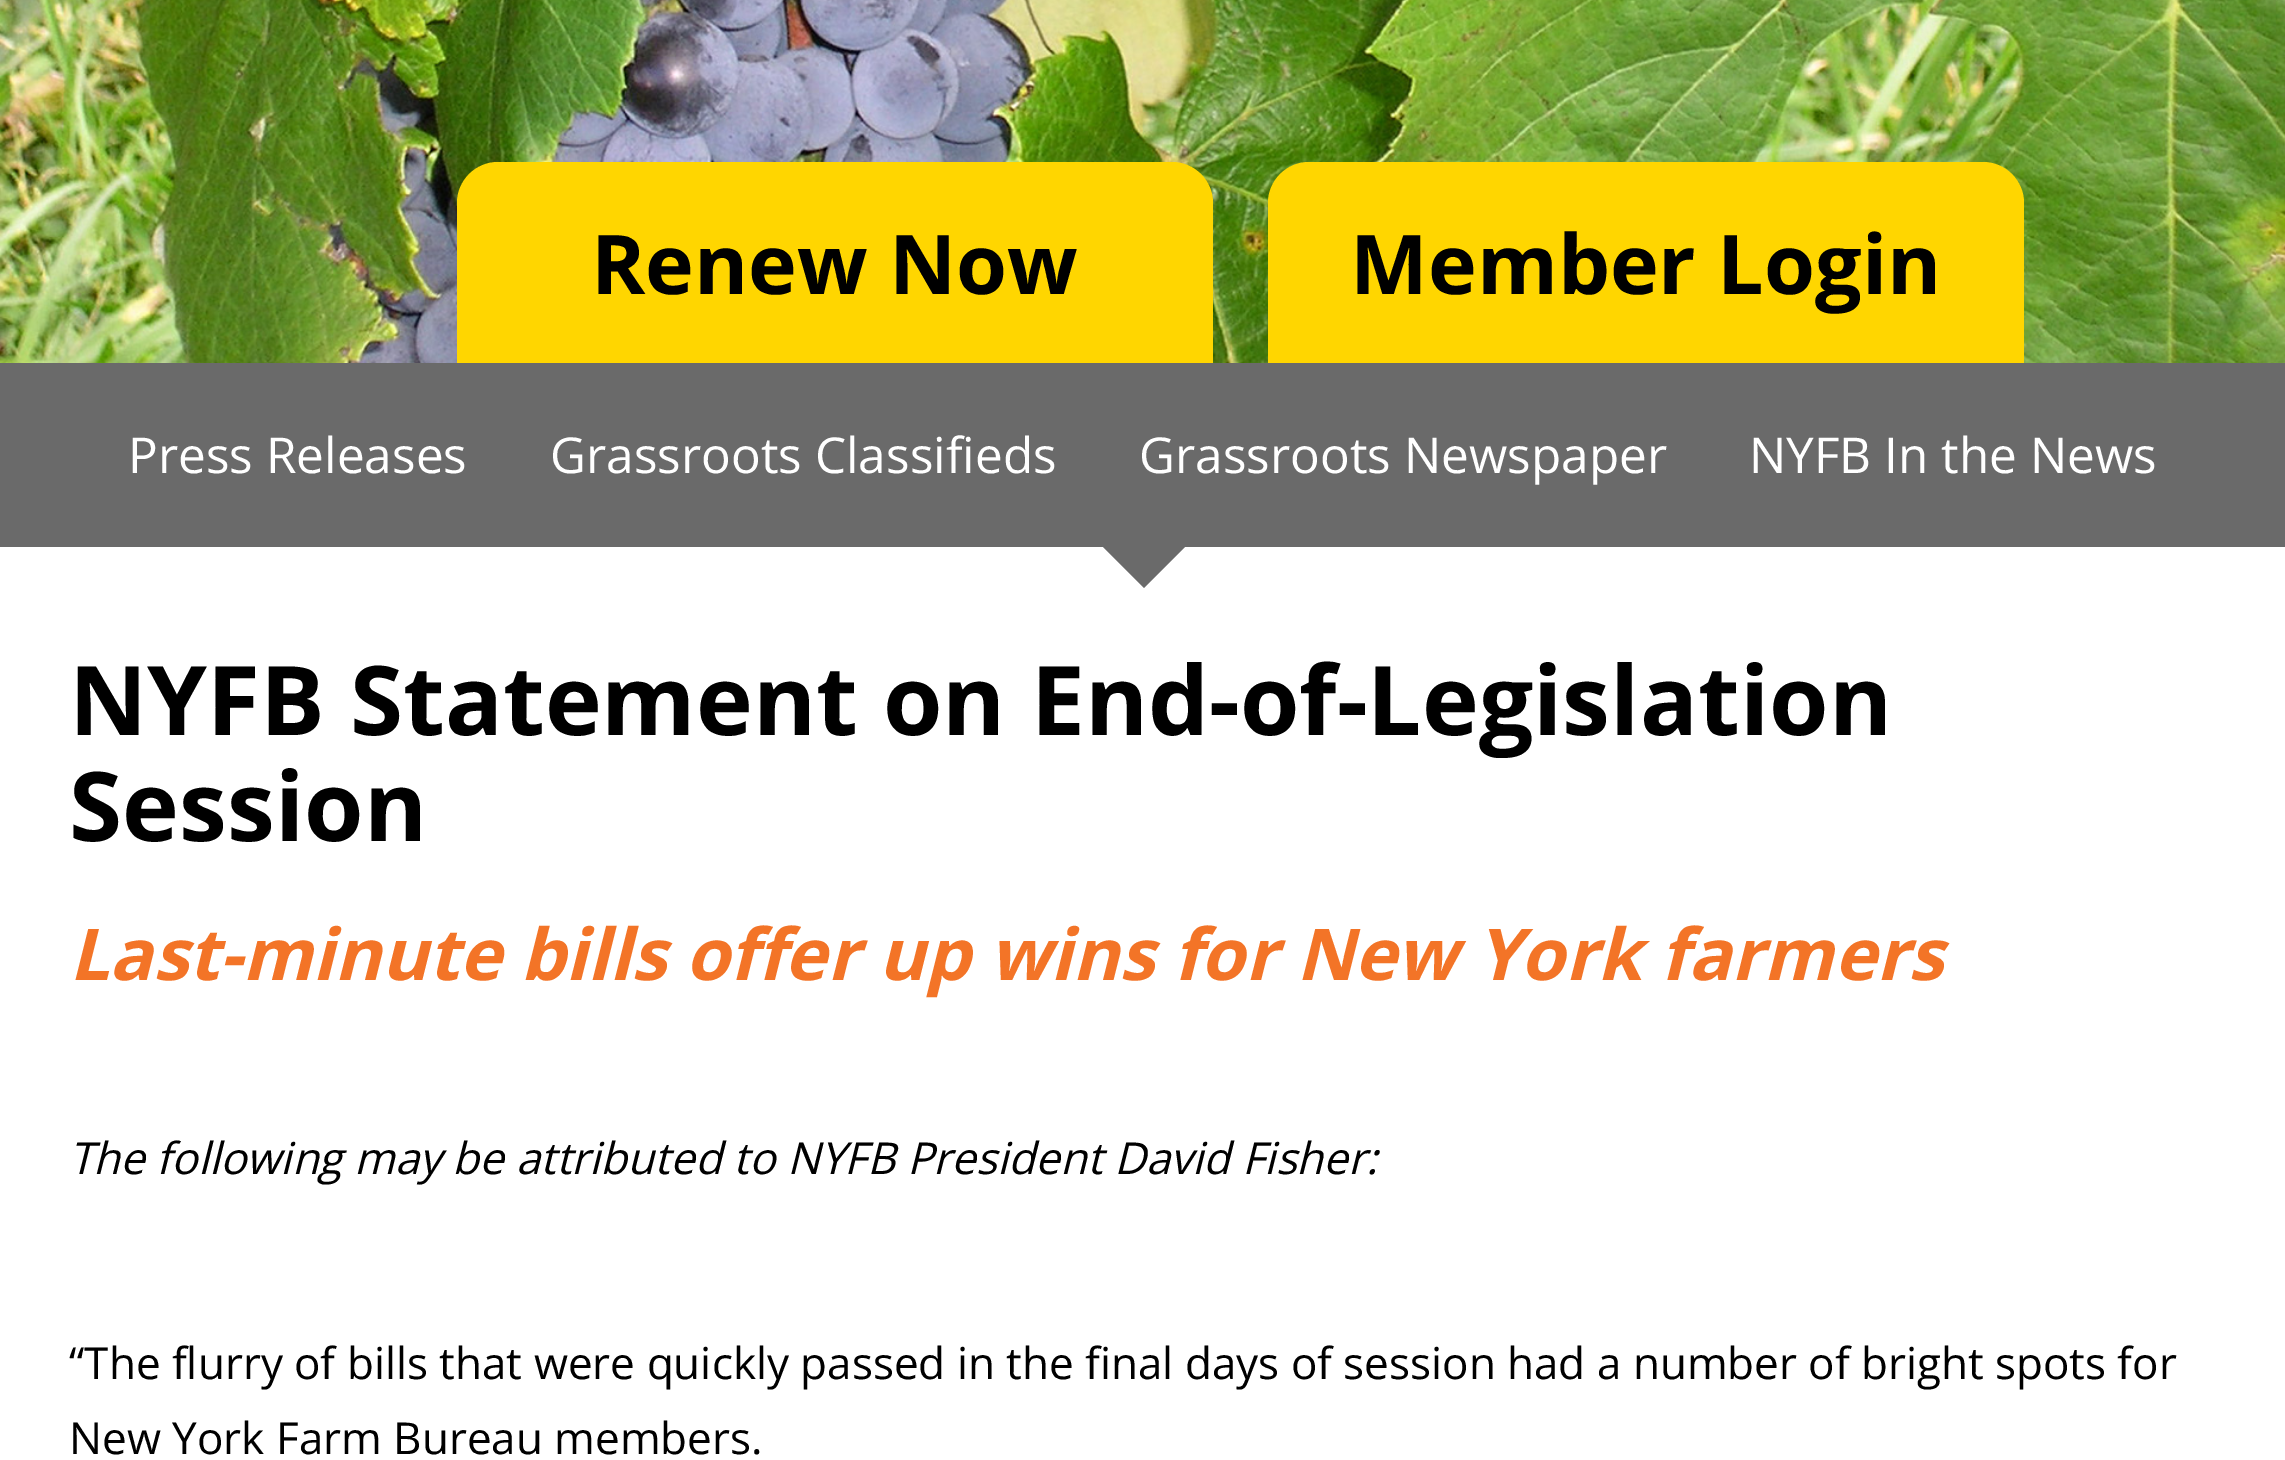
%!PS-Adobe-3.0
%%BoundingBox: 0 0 2285 1460
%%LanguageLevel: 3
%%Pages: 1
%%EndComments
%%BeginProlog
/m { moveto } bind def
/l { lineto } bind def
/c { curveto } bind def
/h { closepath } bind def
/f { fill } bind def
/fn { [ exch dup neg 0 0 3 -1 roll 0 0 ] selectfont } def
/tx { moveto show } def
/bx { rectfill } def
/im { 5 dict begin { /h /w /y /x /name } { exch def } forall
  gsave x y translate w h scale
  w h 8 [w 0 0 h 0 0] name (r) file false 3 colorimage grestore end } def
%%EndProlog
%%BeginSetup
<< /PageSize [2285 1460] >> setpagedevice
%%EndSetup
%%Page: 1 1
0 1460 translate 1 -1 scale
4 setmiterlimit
1 setgray
0 0 2285 1460 bx
(image0.raw) 0 0 2285 363 im
1 0.839 0 setrgbcolor
498 162 m 1172 162 l 1194.5 162 1213 180.5 1213 203 c 1213 363 l 457 363 l 457 203 l 457 180.5 475.5 162 498 162 c h f
/OpenSans-Bold 82.5 fn
0 setgray
(Renew Now) 591 294 tx
1 0.839 0 setrgbcolor
1309 162 m 1983 162 l 2005.5 162 2024 180.5 2024 203 c 2024 363 l 1268 363 l 1268 203 l 1268 180.5 1286.5 162 1309 162 c h f
0 setgray
(Member Login) 1350 294 tx
0.416 setgray
0 363 2285 184 bx
/OpenSans-Regular 49.5 fn
1 setgray
(Press Releases) 128 473 tx
0.416 setgray
1103 547 m 1185 547 l 1144 588 l h f
1 setgray
(Grassroots Classifieds) 550 473 tx
(Grassroots Newspaper) 1139 473 tx
(NYFB In the News) 1749 473 tx
/OpenSans-Bold 96.25 fn
0 setgray
(NYFB Statement on End-of-Legislation) 69 735 tx
(Session) 69 841 tx
/OpenSans-BoldItalic 71.5 fn
0.953 0.455 0.153 setrgbcolor
(Last-minute bills offer up wins for New York farmers) 69 980 tx
/OpenSans-Italic 44 fn
0 setgray
(The following may be attributed to NYFB President David Fisher:) 69 1174 tx
/OpenSans-Regular 44 fn
(“The flurry of bills that were quickly passed in the final days of session had a number of bright spots for) 69 1379 tx
(New York Farm Bureau members.) 69 1454 tx
showpage
%%EOF
